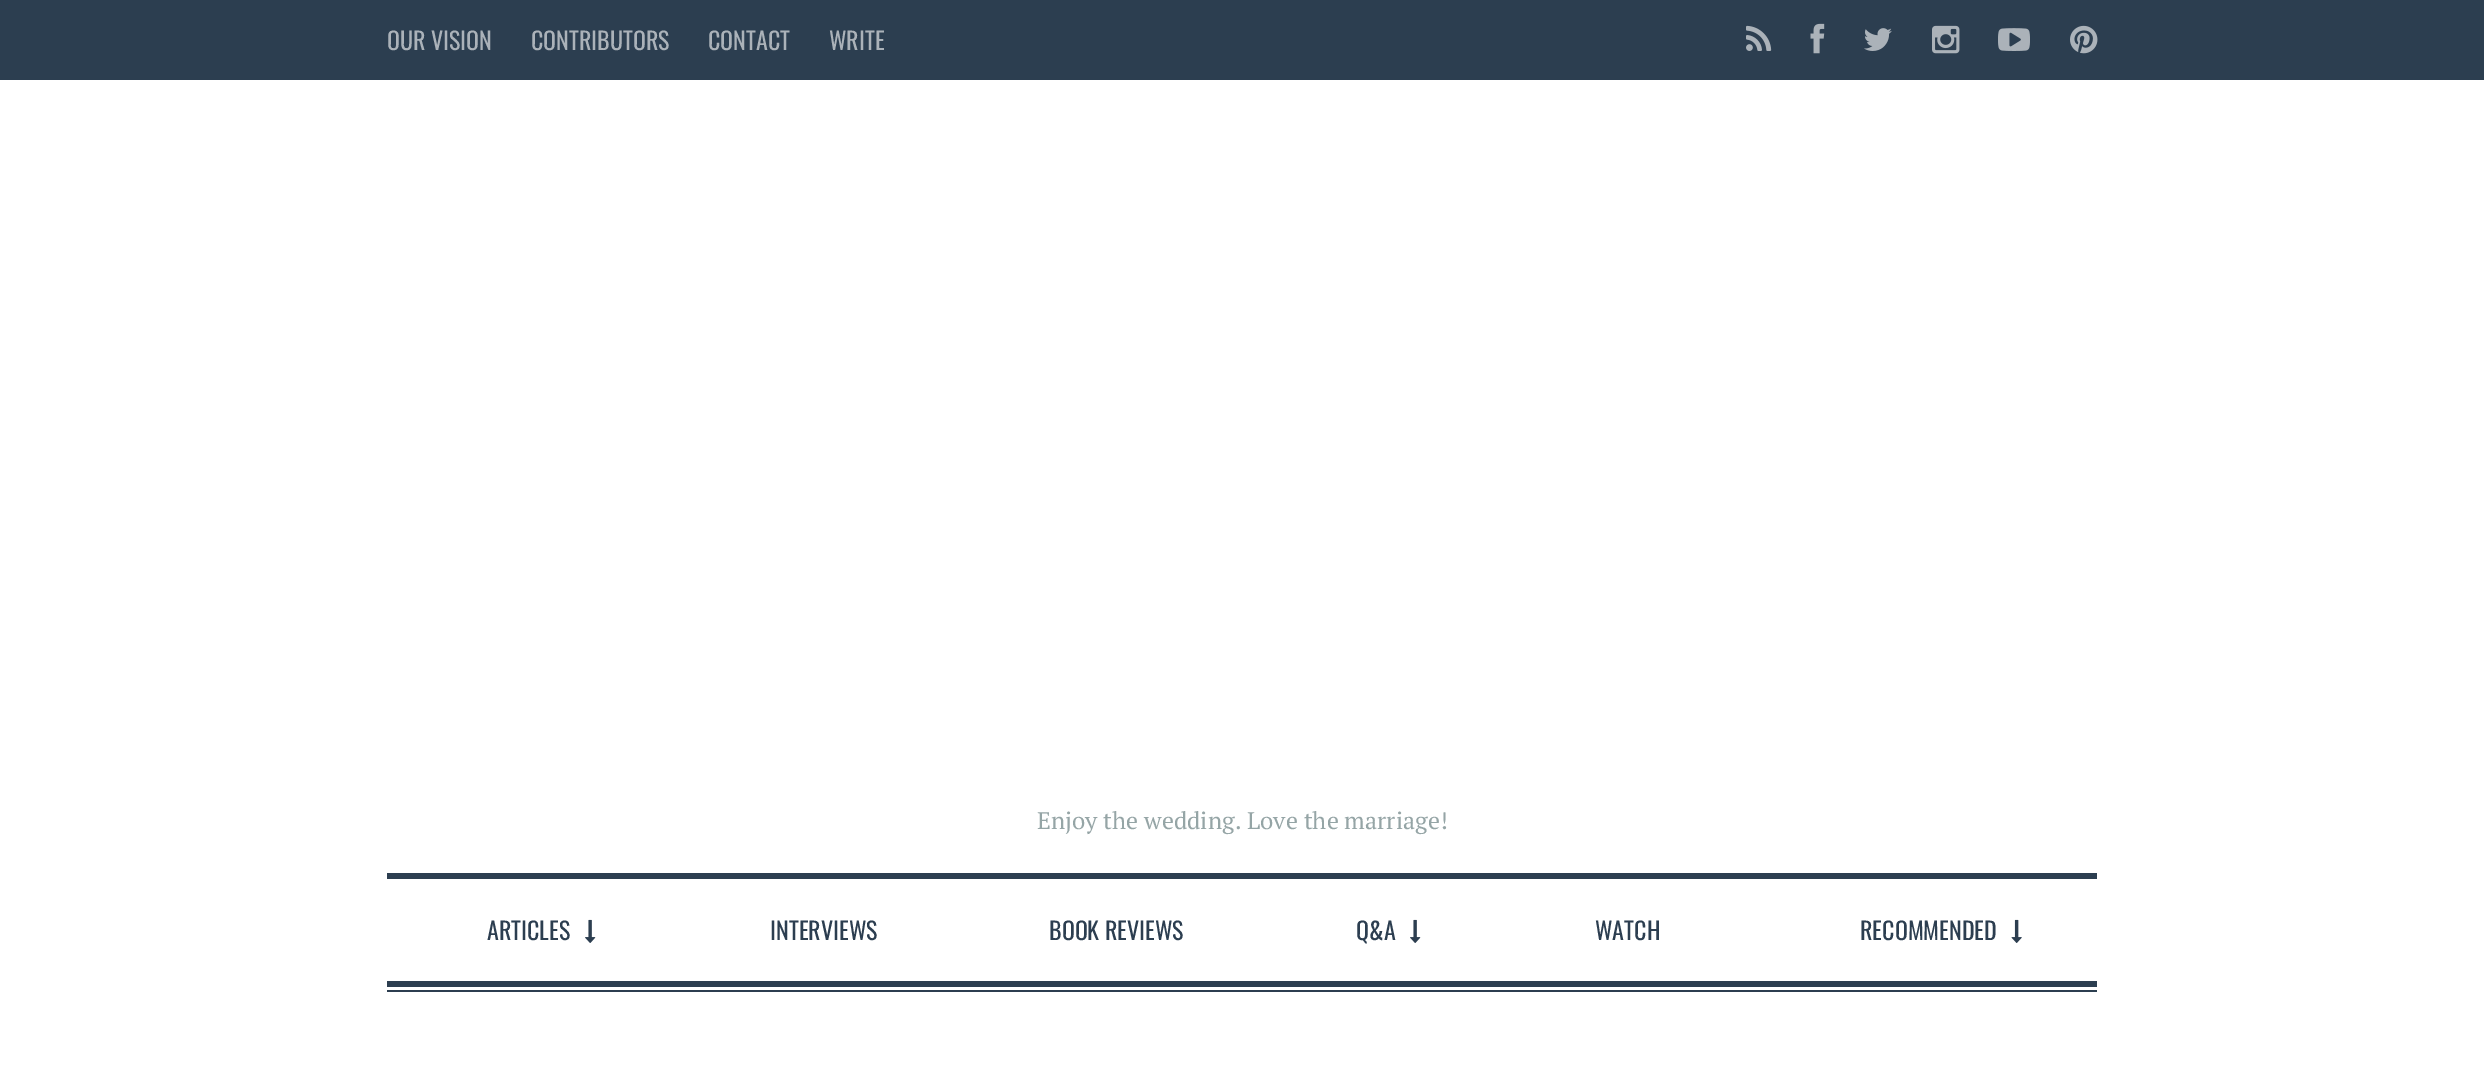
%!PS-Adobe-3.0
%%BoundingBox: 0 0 2484 1083
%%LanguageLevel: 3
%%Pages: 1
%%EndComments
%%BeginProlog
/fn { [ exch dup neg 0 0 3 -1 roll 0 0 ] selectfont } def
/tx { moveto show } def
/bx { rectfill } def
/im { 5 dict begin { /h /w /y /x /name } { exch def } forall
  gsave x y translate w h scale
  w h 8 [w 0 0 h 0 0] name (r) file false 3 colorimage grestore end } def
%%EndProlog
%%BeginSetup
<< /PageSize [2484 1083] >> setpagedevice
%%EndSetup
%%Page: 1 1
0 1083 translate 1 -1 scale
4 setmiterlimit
1 setgray
0 0 2484 1083 bx
0.173 0.243 0.314 setrgbcolor
0 0 2484 80 bx
/Oswald-Regular 24 fn
0.671 0.698 0.725 setrgbcolor
(OUR VISION) 387 50 tx
(CONTRIBUTORS) 531 50 tx
(CONTACT) 708 50 tx
(WRITE) 829 50 tx
(image0.raw) 1746 25 26 26 im
(image1.raw) 1810 23 15 31 im
(image2.raw) 1864 28 28 23 im
(image3.raw) 1932 25 28 29 im
(image4.raw) 1998 28 32 23 im
(image5.raw) 2070 25 28 29 im
0.173 0.243 0.314 setrgbcolor
387 873 1710 6 bx
/PTSerif-Regular 24 fn
0.584 0.647 0.651 setrgbcolor
(Enjoy the wedding. Love the marriage!) 1037 829 tx
0.173 0.243 0.314 setrgbcolor
387 990 1710 2 bx
387 981 1710 6 bx
/Oswald-Regular 24 fn
(ARTICLES) 487 940 tx
(image6.raw) 585 919 11 24 im
(INTERVIEWS) 770 940 tx
(BOOK REVIEWS) 1049 940 tx
(Q&A) 1356 940 tx
(image6.raw) 1410 919 11 24 im
(WATCH) 1595 940 tx
(RECOMMENDED) 1860 940 tx
(image7.raw) 2011 919 11 24 im
showpage
%%EOF
